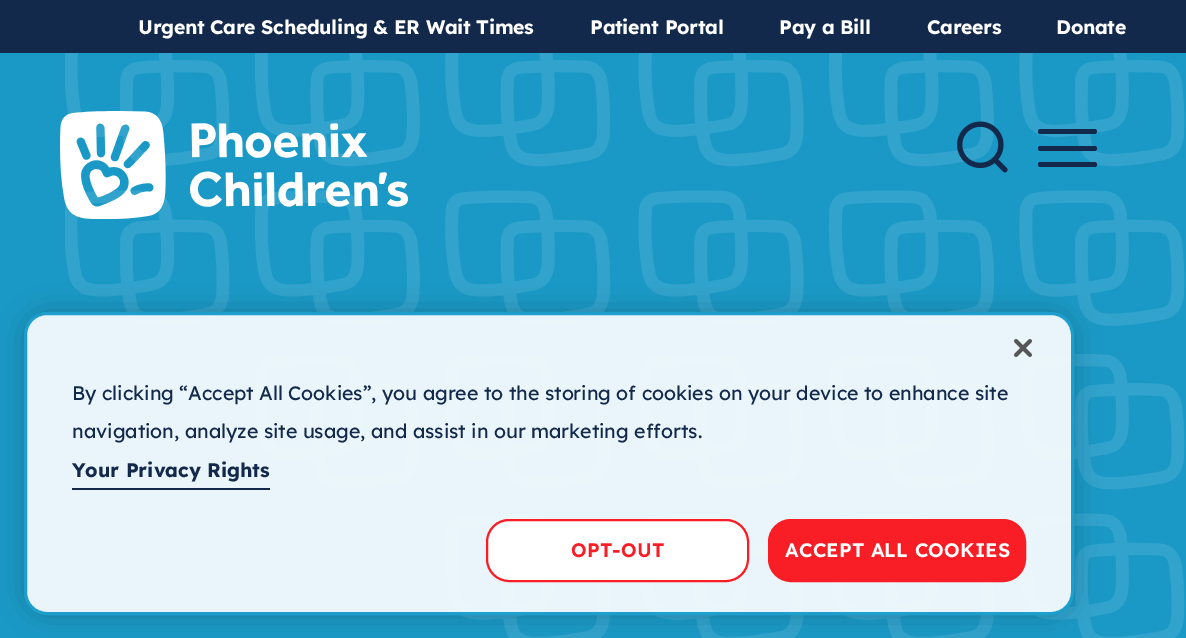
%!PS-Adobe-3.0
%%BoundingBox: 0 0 1186 638
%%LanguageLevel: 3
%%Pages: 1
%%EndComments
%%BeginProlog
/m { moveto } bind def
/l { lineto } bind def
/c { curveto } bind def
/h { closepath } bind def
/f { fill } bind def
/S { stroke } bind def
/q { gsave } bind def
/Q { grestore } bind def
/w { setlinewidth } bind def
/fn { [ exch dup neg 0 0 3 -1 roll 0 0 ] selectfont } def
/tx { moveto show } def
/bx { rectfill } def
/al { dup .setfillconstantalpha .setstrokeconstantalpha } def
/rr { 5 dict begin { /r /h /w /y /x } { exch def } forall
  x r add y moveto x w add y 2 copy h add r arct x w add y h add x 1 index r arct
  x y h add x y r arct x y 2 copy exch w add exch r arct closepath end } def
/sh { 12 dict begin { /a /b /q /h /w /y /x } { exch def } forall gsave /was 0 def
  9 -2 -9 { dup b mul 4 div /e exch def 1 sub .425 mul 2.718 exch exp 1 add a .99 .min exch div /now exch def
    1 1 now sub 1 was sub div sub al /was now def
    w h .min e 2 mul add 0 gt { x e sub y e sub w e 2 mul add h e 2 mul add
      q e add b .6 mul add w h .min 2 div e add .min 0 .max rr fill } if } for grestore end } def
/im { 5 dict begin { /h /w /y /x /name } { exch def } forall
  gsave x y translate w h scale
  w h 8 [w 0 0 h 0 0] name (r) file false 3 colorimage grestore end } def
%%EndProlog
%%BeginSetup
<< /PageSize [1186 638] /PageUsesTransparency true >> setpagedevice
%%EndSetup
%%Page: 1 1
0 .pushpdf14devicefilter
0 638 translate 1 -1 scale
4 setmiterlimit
0.102 0.6 0.78 setrgbcolor
0 0 1186 638 bx
0.075 0.161 0.294 setrgbcolor
0 0 1186 53 bx
/Lexend-Bold 19.5 fn
1 setgray
138 34 m -0.35 0 (Urgent Care Scheduling & ER Wait Times) ashow
590 34 m -0.35 0 (Patient Portal) ashow
779 34 m -0.35 0 (Pay a Bill) ashow
927 34 m -0.35 0 (Careers) ashow
1056 34 m -0.35 0 (Donate) ashow
(image2.raw) 65 53 1120 585 im
(image0.raw) 60 111 348 108 im
(image1.raw) 957 121 51 52 im
0.075 0.161 0.294 setrgbcolor
1038 129 59 5 2.5 rr f
1038 146 59 5 2.5 rr f
1038 162 59 5 2.5 rr f
q
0 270 m 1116 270 l 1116 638 l 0 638 l h 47 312 m 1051 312 l 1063.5 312 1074 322.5 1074 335 c 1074 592 l 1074 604.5 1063.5 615 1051 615 c 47 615 l 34.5 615 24 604.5 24 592 c 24 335 l 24 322.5 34.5 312 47 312 c h eoclip newpath
0 setgray
24 312 1050 303 23 13.5 0.2 sh
Q
0.9 al
1 setgray
25.5 313.5 1047 300 21.5 rr f
1 al
0.118 0.62 0.8 setrgbcolor
3 w
25.5 313.5 1047 300 21.5 rr S
(image3.raw) 1014 339 18 18 im
/Lexend-Regular 19.5 fn
0.075 0.161 0.294 setrgbcolor
(By clicking “Accept All Cookies”, you agree to the storing of cookies on your device to enhance site) 72 400 tx
(navigation, analyze site usage, and assist in our marketing efforts.) 72 438 tx
/Lexend-Bold 19.5 fn
(Your Privacy Rights) 72 477 tx
72 488 198 2 bx
1 setgray
487 520 261 61 22 rr q f Q
0.976 0.118 0.149 setrgbcolor
2 w
S
/Lexend-SemiBold 19.5 fn
571 557 m 0.25 0 (OPT-OUT) ashow
769 520 256 61 22 rr q f Q
S
1 setgray
785 557 m 0.25 0 (ACCEPT ALL COOKIES) ashow
.poppdf14devicefilter showpage
%%EOF
